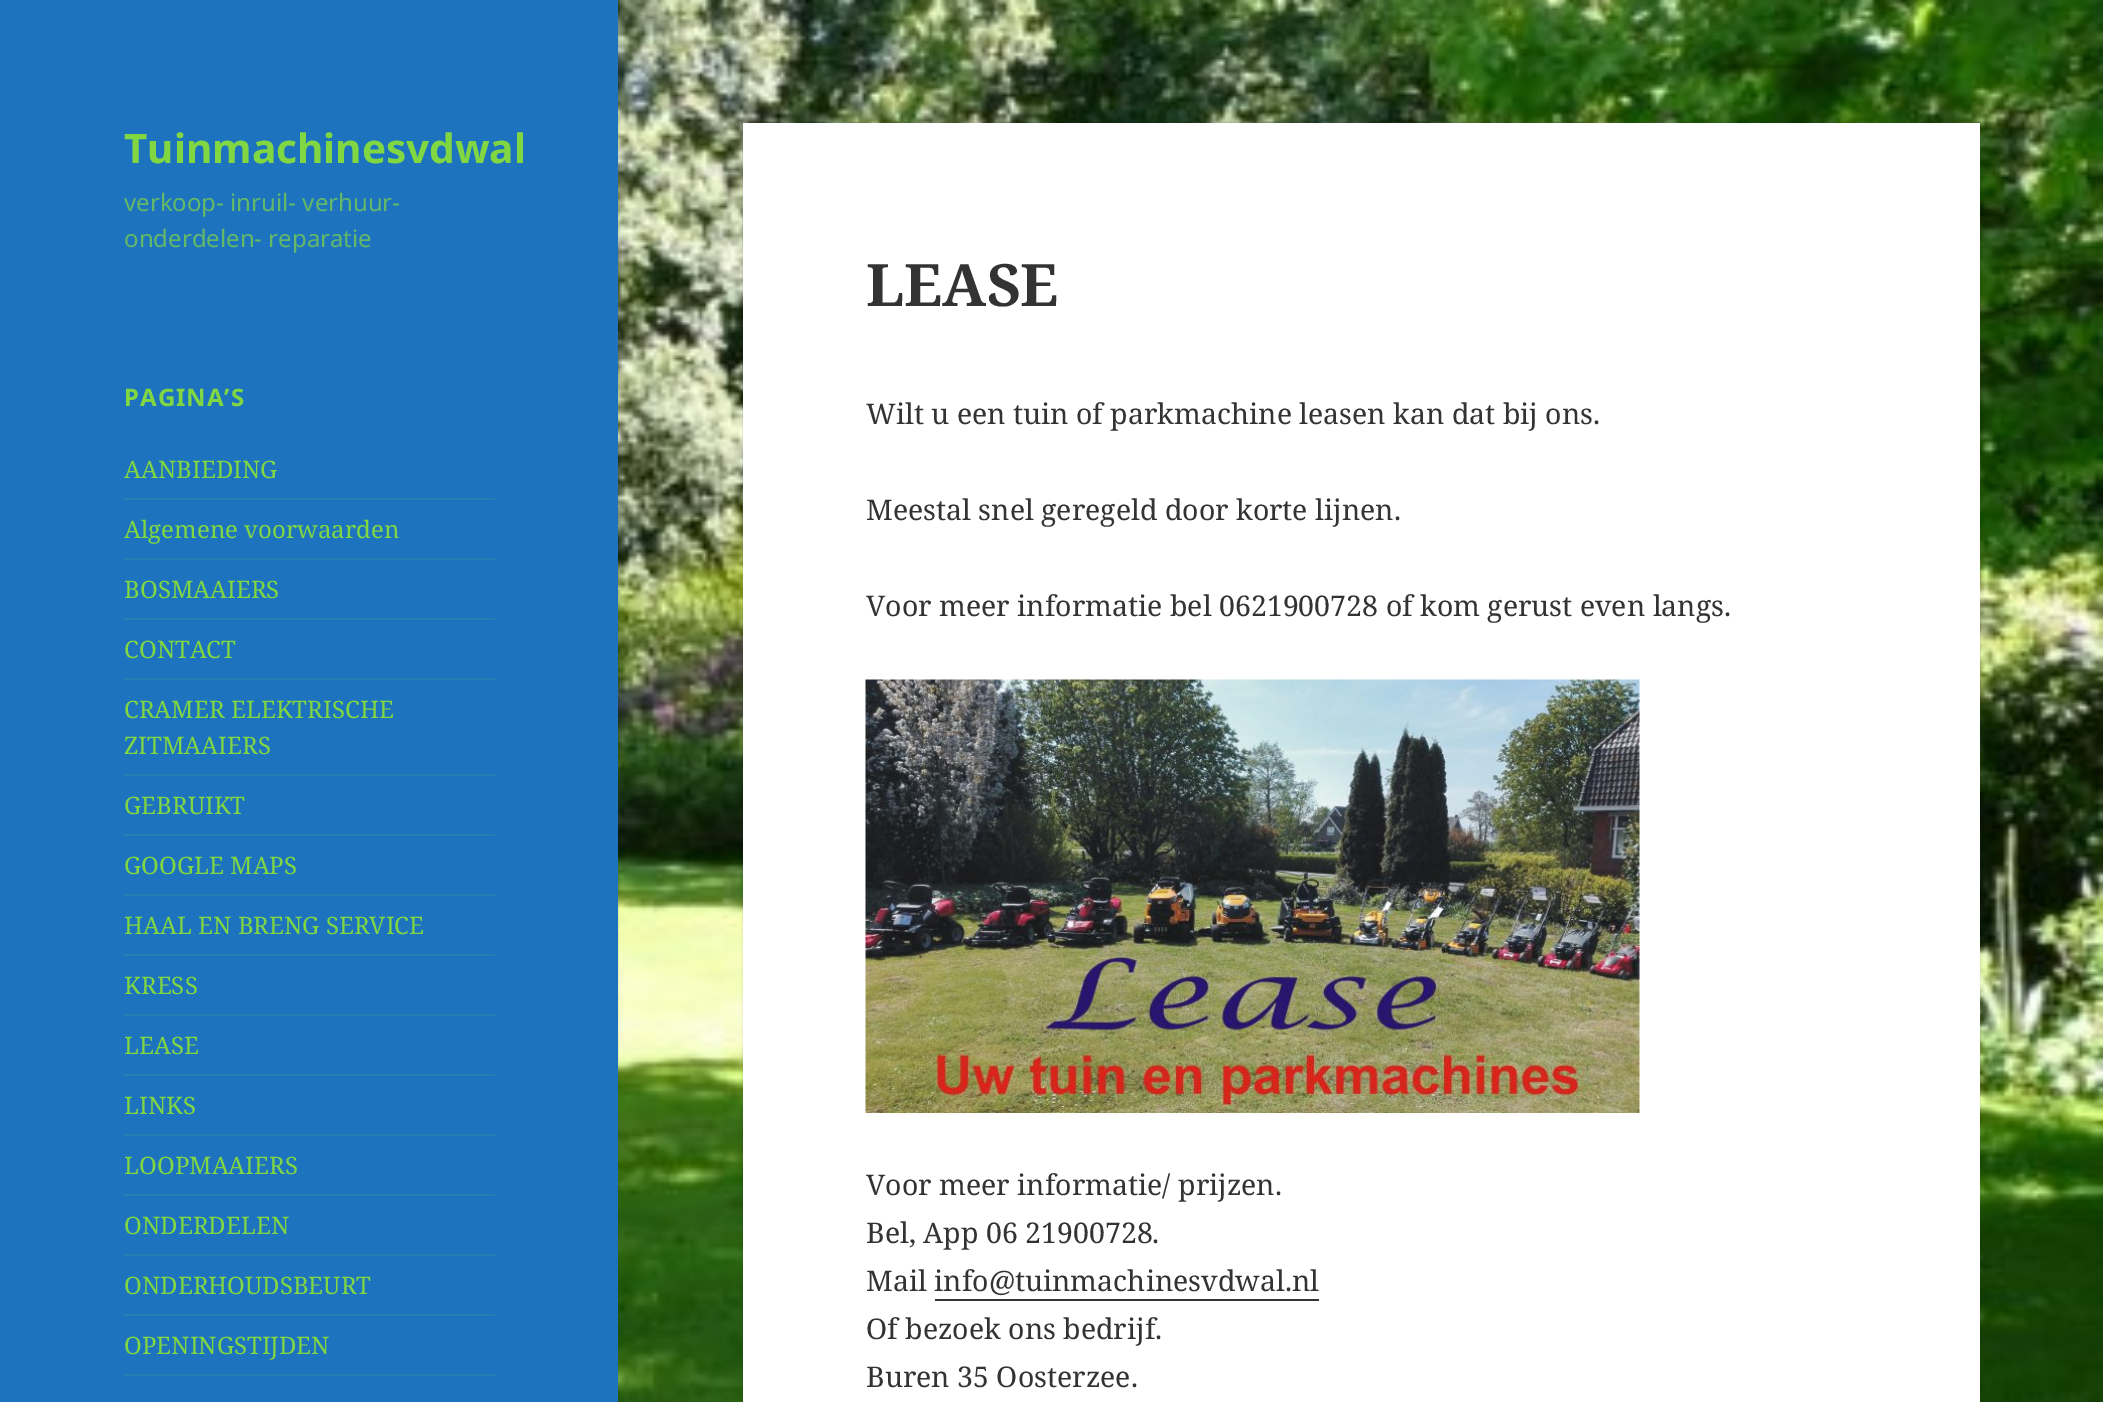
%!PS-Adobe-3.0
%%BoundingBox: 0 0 2103 1402
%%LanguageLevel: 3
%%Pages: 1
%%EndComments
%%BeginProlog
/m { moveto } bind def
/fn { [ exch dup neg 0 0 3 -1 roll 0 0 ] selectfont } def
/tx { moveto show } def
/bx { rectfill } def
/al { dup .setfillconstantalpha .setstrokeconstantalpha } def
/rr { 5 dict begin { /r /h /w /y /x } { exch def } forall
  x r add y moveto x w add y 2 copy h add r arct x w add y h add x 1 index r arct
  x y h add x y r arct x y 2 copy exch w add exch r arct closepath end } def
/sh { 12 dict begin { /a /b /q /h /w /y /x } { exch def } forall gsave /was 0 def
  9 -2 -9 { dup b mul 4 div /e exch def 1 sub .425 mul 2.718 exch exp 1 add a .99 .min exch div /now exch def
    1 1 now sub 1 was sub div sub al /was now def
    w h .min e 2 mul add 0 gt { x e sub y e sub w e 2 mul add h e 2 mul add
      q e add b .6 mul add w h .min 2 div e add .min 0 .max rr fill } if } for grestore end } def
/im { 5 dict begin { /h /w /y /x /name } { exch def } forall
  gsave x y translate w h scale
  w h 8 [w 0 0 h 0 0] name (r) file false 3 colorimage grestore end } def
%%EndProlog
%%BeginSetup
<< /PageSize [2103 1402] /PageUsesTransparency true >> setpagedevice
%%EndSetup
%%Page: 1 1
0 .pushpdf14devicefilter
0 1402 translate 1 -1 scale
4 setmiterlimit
1 setgray
0 0 2103 1402 bx
(image0.raw) 618 0 1485 1402 im
0 setgray
0 0 618 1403 0 1 0.15 sh
0.118 0.451 0.745 setrgbcolor
0 0 618 1402 bx
/NotoSans-Bold 40.5 fn
0.506 0.843 0.259 setrgbcolor
(Tuinmachinesvdwal) 124 163 tx
/NotoSans-Regular 24 fn
0.388 0.725 0.404 setrgbcolor
(verkoop- inruil- verhuur-) 124 211 tx
(onderdelen- reparatie) 124 247 tx
/NotoSans-Bold 24 fn
0.506 0.843 0.259 setrgbcolor
124 406 m 1 0 (PAGINA’S) ashow
/NotoSerif-Regular 24 fn
(AANBIEDING) 124 478 tx
0.157 0.49 0.698 setrgbcolor
123 498 372 2 bx
0.506 0.843 0.259 setrgbcolor
(Algemene voorwaarden) 124 538 tx
0.157 0.49 0.698 setrgbcolor
123 558 372 2 bx
0.506 0.843 0.259 setrgbcolor
(BOSMAAIERS) 124 598 tx
0.157 0.49 0.698 setrgbcolor
123 618 372 2 bx
0.506 0.843 0.259 setrgbcolor
(CONTACT) 124 658 tx
0.157 0.49 0.698 setrgbcolor
123 678 372 2 bx
0.506 0.843 0.259 setrgbcolor
(CRAMER ELEKTRISCHE) 124 718 tx
(ZITMAAIERS) 124 754 tx
0.157 0.49 0.698 setrgbcolor
123 774 372 2 bx
0.506 0.843 0.259 setrgbcolor
(GEBRUIKT) 124 814 tx
0.157 0.49 0.698 setrgbcolor
123 834 372 2 bx
0.506 0.843 0.259 setrgbcolor
(GOOGLE MAPS) 124 874 tx
0.157 0.49 0.698 setrgbcolor
123 894 372 2 bx
0.506 0.843 0.259 setrgbcolor
(HAAL EN BRENG SERVICE) 124 934 tx
0.157 0.49 0.698 setrgbcolor
123 954 372 2 bx
0.506 0.843 0.259 setrgbcolor
(KRESS) 124 994 tx
0.157 0.49 0.698 setrgbcolor
123 1014 372 2 bx
0.506 0.843 0.259 setrgbcolor
(LEASE) 124 1054 tx
0.157 0.49 0.698 setrgbcolor
123 1074 372 2 bx
0.506 0.843 0.259 setrgbcolor
(LINKS) 124 1114 tx
0.157 0.49 0.698 setrgbcolor
123 1134 372 2 bx
0.506 0.843 0.259 setrgbcolor
(LOOPMAAIERS) 124 1174 tx
0.157 0.49 0.698 setrgbcolor
123 1194 372 2 bx
0.506 0.843 0.259 setrgbcolor
(ONDERDELEN) 124 1234 tx
0.157 0.49 0.698 setrgbcolor
123 1254 372 2 bx
0.506 0.843 0.259 setrgbcolor
(ONDERHOUDSBEURT) 124 1294 tx
0.157 0.49 0.698 setrgbcolor
123 1314 372 2 bx
0.506 0.843 0.259 setrgbcolor
(OPENINGSTIJDEN) 124 1354 tx
0.157 0.49 0.698 setrgbcolor
123 1374 372 2 bx
0 setgray
743 123 1237 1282 0 1 0.15 sh
1 setgray
743 123 1237 1279 bx
/NotoSerif-Bold 58.5 fn
0.2 setgray
(LEASE) 866 306 tx
/NotoSerif-Regular 28.5 fn
(Wilt u een tuin of parkmachine leasen kan dat bij ons.) 866 424 tx
(Meestal snel geregeld door korte lijnen.) 866 520 tx
(Voor meer informatie bel 0621900728 of kom gerust even langs.) 866 616 tx
(image1.raw) 865 679 775 434 im
(Voor meer informatie/ prijzen.) 866 1195 tx
(Bel, App 06 21900728.) 866 1243 tx
(Mail info@tuinmachinesvdwal.nl) 866 1291 tx
935 1299 384 2 bx
(Of bezoek ons bedrijf.) 866 1339 tx
(Buren 35 Oosterzee.) 866 1387 tx
.poppdf14devicefilter showpage
%%EOF
